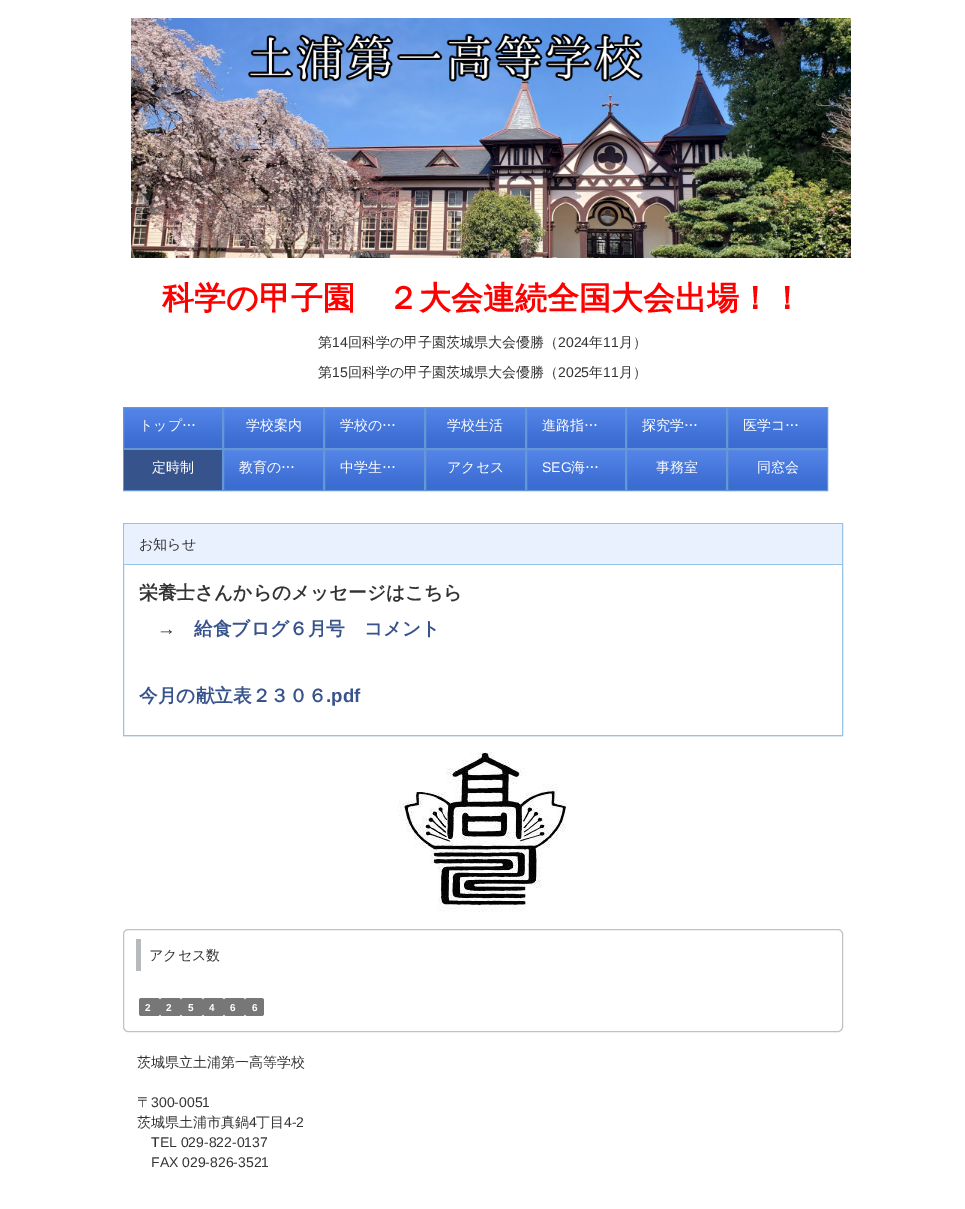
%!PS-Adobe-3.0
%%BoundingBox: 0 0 965 1209
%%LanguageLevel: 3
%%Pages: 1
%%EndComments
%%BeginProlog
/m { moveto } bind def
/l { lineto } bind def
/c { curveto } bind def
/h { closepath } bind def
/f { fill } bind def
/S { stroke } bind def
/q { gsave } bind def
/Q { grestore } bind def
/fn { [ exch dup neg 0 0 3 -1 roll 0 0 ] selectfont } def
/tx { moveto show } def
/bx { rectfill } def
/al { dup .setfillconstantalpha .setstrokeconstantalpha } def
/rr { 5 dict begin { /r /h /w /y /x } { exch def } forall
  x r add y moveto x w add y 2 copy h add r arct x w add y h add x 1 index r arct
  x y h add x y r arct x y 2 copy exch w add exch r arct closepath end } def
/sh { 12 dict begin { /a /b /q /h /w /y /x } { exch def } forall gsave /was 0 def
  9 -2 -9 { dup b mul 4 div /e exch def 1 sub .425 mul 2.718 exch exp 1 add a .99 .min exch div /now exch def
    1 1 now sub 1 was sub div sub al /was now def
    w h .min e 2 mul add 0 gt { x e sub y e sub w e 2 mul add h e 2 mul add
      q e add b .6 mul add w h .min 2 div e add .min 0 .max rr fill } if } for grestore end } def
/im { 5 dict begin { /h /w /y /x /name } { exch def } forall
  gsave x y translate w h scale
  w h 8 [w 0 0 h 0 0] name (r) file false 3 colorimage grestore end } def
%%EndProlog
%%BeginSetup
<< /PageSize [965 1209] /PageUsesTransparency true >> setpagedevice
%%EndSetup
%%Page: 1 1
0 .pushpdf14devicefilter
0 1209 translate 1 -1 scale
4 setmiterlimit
1 setgray
0 0 965 1209 bx
(image0.raw) 131 18 720 240 im
/WenQuanYiZenHei-Bold 32 fn
1 0 0 setrgbcolor
(科学の甲子園　２大会連続全国大会出場！！) 162 309 tx
/WenQuanYiZenHei-Medium 14 fn
0.2 setgray
(第) 318 347 tx
/LiberationSans-Regular 14 fn
(14) 332 347 tx
/WenQuanYiZenHei-Medium 14 fn
(回科学の甲子園茨城県大会優勝（) 348 347 tx
/LiberationSans-Regular 14 fn
(2024) 558 347 tx
/WenQuanYiZenHei-Medium 14 fn
(年) 589 347 tx
/LiberationSans-Regular 14 fn
(11) 603 347 tx
/WenQuanYiZenHei-Medium 14 fn
(月）) 619 347 tx
(第) 318 377 tx
/LiberationSans-Regular 14 fn
(15) 332 377 tx
/WenQuanYiZenHei-Medium 14 fn
(回科学の甲子園茨城県大会優勝（) 348 377 tx
/LiberationSans-Regular 14 fn
(2025) 558 377 tx
/WenQuanYiZenHei-Medium 14 fn
(年) 589 377 tx
/LiberationSans-Regular 14 fn
(11) 603 377 tx
/WenQuanYiZenHei-Medium 14 fn
(月）) 619 377 tx
(image1.raw) 124 408 98 40 im
0.396 0.588 0.839 setrgbcolor
123.5 407.5 99 41 rectstroke
1 setgray
(トップ…) 139 430 tx
(image2.raw) 224 408 99 40 im
0.396 0.588 0.839 setrgbcolor
223.5 407.5 100 41 rectstroke
1 setgray
(学校案内) 246 430 tx
(image2.raw) 325 408 99 40 im
0.396 0.588 0.839 setrgbcolor
324.5 407.5 100 41 rectstroke
1 setgray
(学校の…) 340 430 tx
(image2.raw) 426 408 99 40 im
0.396 0.588 0.839 setrgbcolor
425.5 407.5 100 41 rectstroke
1 setgray
(学校生活) 447 430 tx
(image1.raw) 527 408 98 40 im
0.396 0.588 0.839 setrgbcolor
526.5 407.5 99 41 rectstroke
1 setgray
(進路指…) 542 430 tx
(image2.raw) 627 408 99 40 im
0.396 0.588 0.839 setrgbcolor
626.5 407.5 100 41 rectstroke
1 setgray
(探究学…) 642 430 tx
(image2.raw) 728 408 99 40 im
0.396 0.588 0.839 setrgbcolor
727.5 407.5 100 41 rectstroke
1 setgray
(医学コ…) 743 430 tx
0.396 0.588 0.839 setrgbcolor
123.5 449.5 99 41 rectstroke
0.216 0.325 0.549 setrgbcolor
124 450 98 40 bx
1 setgray
(定時制) 152 472 tx
(image2.raw) 224 450 99 40 im
0.396 0.588 0.839 setrgbcolor
223.5 449.5 100 41 rectstroke
1 setgray
(教育の…) 239 472 tx
(image2.raw) 325 450 99 40 im
0.396 0.588 0.839 setrgbcolor
324.5 449.5 100 41 rectstroke
1 setgray
(中学生…) 340 472 tx
(image2.raw) 426 450 99 40 im
0.396 0.588 0.839 setrgbcolor
425.5 449.5 100 41 rectstroke
1 setgray
(アクセス) 447 472 tx
(image1.raw) 527 450 98 40 im
0.396 0.588 0.839 setrgbcolor
526.5 449.5 99 41 rectstroke
/LiberationSans-Regular 14 fn
1 setgray
(SEG) 542 472 tx
/WenQuanYiZenHei-Medium 14 fn
(海…) 571 472 tx
(image2.raw) 627 450 99 40 im
0.396 0.588 0.839 setrgbcolor
626.5 449.5 100 41 rectstroke
1 setgray
(事務室) 656 472 tx
(image2.raw) 728 450 99 40 im
0.396 0.588 0.839 setrgbcolor
727.5 449.5 100 41 rectstroke
1 setgray
(同窓会) 757 472 tx
q
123 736 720 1 rectclip
0 setgray
123 524 720 213 0 0.5 0.05 sh
Q
0.592 0.757 0.898 setrgbcolor
123.5 523.5 719 212 rectstroke
0.914 0.945 1 setrgbcolor
127 524 m 839 524 l 840.5 524 842 525.5 842 527 c 842 565 l 124 565 l 124 527 l 124 525.5 125.5 524 127 524 c h f
0.592 0.757 0.898 setrgbcolor
124 564 718 1 bx
0.2 setgray
(お知らせ) 139 549 tx
/WenQuanYiZenHei-Bold 18.7 fn
(栄養士さんからのメッセージはこちら) 139 599 tx
/LiberationSans-Bold 18.7 fn
(→) 157 635 tx
/WenQuanYiZenHei-Bold 18.7 fn
0.216 0.325 0.549 setrgbcolor
(給食ブログ６月号　コメント) 194 635 tx
(今月の献立表２３０６) 139 702 tx
/LiberationSans-Bold 18.7 fn
(.pdf) 326 702 tx
(image3.raw) 398 752 168 160 im
0.761 0.761 0.765 setrgbcolor
123.5 929.5 719 102 4.5 rr S
/WenQuanYiZenHei-Medium 14 fn
0.2 setgray
(アクセス数) 149 960 tx
0.718 0.729 0.737 setrgbcolor
136 939 5 32 bx
0.467 setgray
139 998 21 18 2.5 rr f
/LiberationSans-Bold 10 fn
1 setgray
(2) 145 1011 tx
0.467 setgray
160 998 21 18 2.5 rr f
1 setgray
(2) 166 1011 tx
0.467 setgray
181 998 22 18 2.5 rr f
1 setgray
(5) 188 1011 tx
0.467 setgray
203 998 21 18 2.5 rr f
1 setgray
(4) 209 1011 tx
0.467 setgray
224 998 21 18 2.5 rr f
1 setgray
(6) 230 1011 tx
0.467 setgray
245 998 19 18 2.5 rr f
1 setgray
(6) 252 1011 tx
/WenQuanYiZenHei-Medium 14 fn
0.2 setgray
(茨城県立土浦第一高等学校) 137 1067 tx
(〒) 137 1107 tx
/LiberationSans-Regular 14 fn
(300-0051) 151 1107 tx
/WenQuanYiZenHei-Medium 14 fn
(茨城県土浦市真鍋) 137 1127 tx
/LiberationSans-Regular 14 fn
(4) 249 1127 tx
/WenQuanYiZenHei-Medium 14 fn
(丁目) 256 1127 tx
/LiberationSans-Regular 14 fn
(4-2) 284 1127 tx
(TEL 029-822-0137) 151 1147 tx
(FAX 029-826-3521) 151 1167 tx
.poppdf14devicefilter showpage
%%EOF
